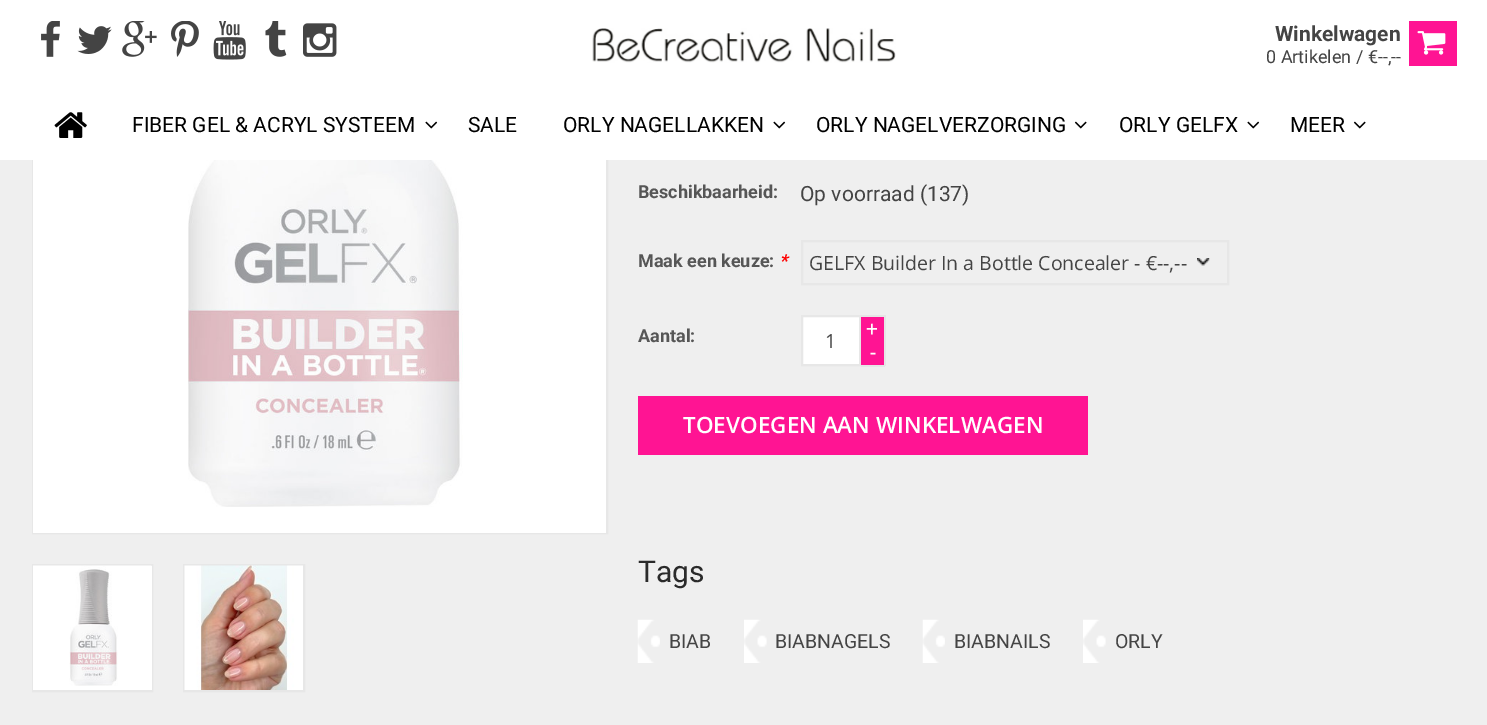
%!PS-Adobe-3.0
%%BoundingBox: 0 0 1487 725
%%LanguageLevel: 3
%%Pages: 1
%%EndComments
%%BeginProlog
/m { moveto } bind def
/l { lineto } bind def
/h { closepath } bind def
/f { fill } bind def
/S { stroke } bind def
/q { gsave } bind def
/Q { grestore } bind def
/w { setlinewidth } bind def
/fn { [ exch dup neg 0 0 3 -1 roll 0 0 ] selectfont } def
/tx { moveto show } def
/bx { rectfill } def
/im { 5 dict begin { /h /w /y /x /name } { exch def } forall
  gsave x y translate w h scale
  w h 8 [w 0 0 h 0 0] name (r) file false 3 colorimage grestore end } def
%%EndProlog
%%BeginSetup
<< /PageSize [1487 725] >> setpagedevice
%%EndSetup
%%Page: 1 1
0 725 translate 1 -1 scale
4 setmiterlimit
0.937 setgray
0 0 1487 725 bx
0.906 setgray
2 w
33 -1 574 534 rectstroke
1 setgray
0 0 1487 160 bx
(image0.raw) 41 21 19 36 im
(image1.raw) 77 26 35 28 im
(image2.raw) 122 21 35 36 im
(image3.raw) 171 21 28 36 im
(image4.raw) 213 21 33 39 im
(image5.raw) 265 21 22 36 im
(image6.raw) 303 23 34 34 im
(image7.raw) 592 28 304 35 im
/Roboto-Bold 21 fn
0.267 setgray
(Winkelwagen) 1275 41 tx
/Roboto-Regular 18 fn
(0 Artikelen / €--,--) 1266 63 tx
1 0.078 0.576 setrgbcolor
1409 21 48 45 bx
(image8.raw) 1417 31 29 24 im
(image9.raw) 54 112 33 26 im
/Roboto-Regular 21 fn
0 setgray
(FIBER GEL & ACRYL SYSTEEM) 132 132 tx
(image10.raw) 425 121 13 8 im
(SALE) 468 132 tx
(ORLY NAGELLAKKEN) 563 132 tx
(image10.raw) 773 121 13 8 im
(ORLY NAGELVERZORGING) 816 132 tx
(image11.raw) 1074 121 13 8 im
(ORLY GELFX) 1119 132 tx
(image10.raw) 1247 121 13 8 im
(MEER) 1290 132 tx
(image11.raw) 1353 121 13 8 im
1 setgray
33 160 573 373 bx
(image12.raw) 188 160 275 347 im
0.906 setgray
33 565 119 126 rectstroke
1 setgray
33 566 119 124 bx
(image13.raw) 33 565 119 121 im
0.906 setgray
184 565 120 126 rectstroke
(image14.raw) 184 565 119 125 im
/Roboto-Bold 18 fn
0.337 setgray
(Beschikbaarheid:) 638 198 tx
/Roboto-Regular 21 fn
0.267 setgray
(Op voorraad \(137\)) 800 201 tx
/Roboto-Bold 18 fn
0.337 setgray
(Maak een keuze:) 638 267 tx
/Roboto-BoldItalic 18 fn
1 0 0 setrgbcolor
(*) 779 267 tx
(image15.raw) 1197 258 13 8 im
0.906 setgray
802 241 426 43 rectstroke
/OpenSans-Regular 19.5 fn
0.267 setgray
(GELFX Builder In a Bottle Concealer - €--,--) 809 270 tx
/Roboto-Bold 18 fn
0.337 setgray
(Aantal:) 638 342 tx
1 setgray
802 316 m 860 316 l 860 365 l 802 365 l h q f Q
0.906 setgray
S
/OpenSans-Regular 19.5 fn
0.267 setgray
(1) 825 348 tx
1 0.078 0.576 setrgbcolor
861 317 23 48 bx
0.898 setgray
861 315 24 2 bx
884 315 2 51 bx
861 365 24 2 bx
/Roboto-Regular 21 fn
1 setgray
(+) 866 336 tx
(-) 870 360 tx
1 0.078 0.576 setrgbcolor
638 396 450 59 bx
/OpenSans-SemiBold 22.5 fn
1 setgray
(TOEVOEGEN AAN WINKELWAGEN) 683 433 tx
/Roboto-Regular 30 fn
0.165 setgray
(Tags) 638 582 tx
(image16.raw) 637 619 23 44 im
/Roboto-Regular 19.5 fn
0.267 setgray
(BIAB) 669 648 tx
(image17.raw) 744 619 23 44 im
(BIABNAGELS) 775 648 tx
(image18.raw) 922 619 23 44 im
(BIABNAILS) 954 648 tx
(image17.raw) 1083 619 23 44 im
(ORLY) 1115 648 tx
showpage
%%EOF
